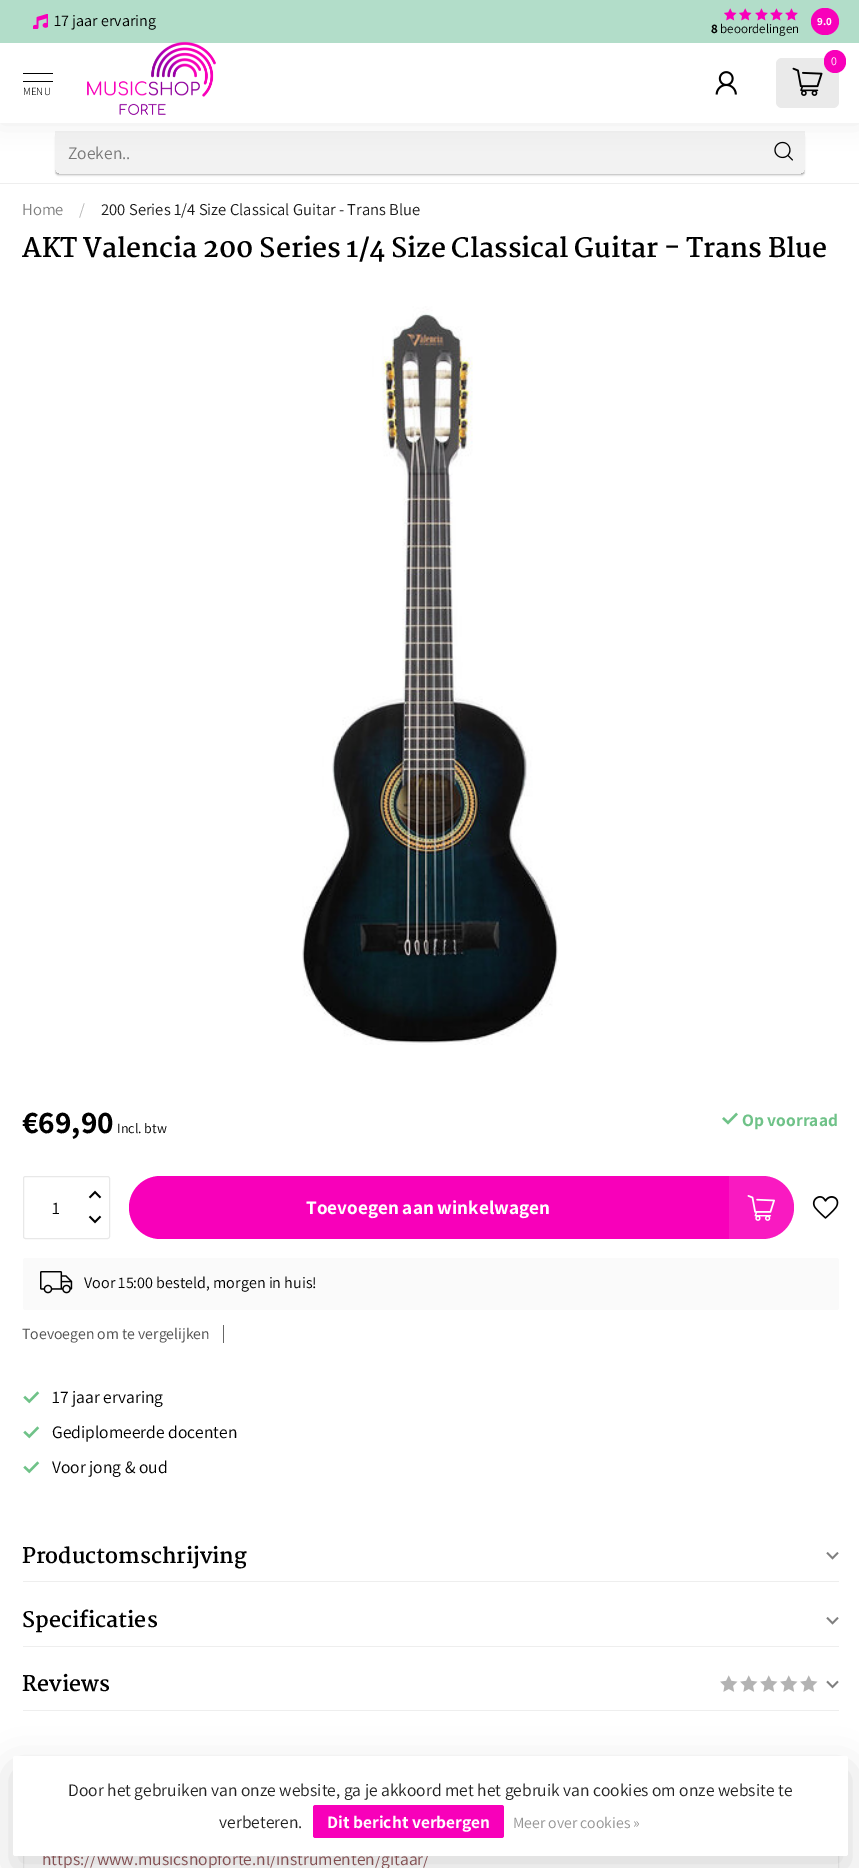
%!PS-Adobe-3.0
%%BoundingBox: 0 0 859 1868
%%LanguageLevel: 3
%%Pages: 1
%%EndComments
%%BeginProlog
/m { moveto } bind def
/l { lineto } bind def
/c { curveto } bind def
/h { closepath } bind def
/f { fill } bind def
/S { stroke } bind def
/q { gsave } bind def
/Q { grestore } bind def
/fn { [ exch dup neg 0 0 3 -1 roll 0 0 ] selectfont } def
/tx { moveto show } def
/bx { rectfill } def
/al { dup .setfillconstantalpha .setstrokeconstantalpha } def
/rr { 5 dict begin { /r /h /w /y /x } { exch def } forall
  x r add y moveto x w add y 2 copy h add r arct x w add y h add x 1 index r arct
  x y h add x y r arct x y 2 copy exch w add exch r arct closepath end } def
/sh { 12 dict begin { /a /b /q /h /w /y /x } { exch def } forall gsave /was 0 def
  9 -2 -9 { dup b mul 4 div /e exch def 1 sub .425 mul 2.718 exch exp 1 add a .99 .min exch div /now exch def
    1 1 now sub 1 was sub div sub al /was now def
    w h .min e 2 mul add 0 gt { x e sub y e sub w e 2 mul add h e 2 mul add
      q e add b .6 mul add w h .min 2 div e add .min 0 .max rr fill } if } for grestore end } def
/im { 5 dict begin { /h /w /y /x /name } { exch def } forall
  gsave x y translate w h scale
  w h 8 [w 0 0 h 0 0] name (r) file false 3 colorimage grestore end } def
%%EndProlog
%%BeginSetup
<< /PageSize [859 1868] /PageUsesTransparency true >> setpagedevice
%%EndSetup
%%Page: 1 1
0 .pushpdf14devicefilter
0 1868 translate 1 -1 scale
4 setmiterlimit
1 setgray
0 0 859 1868 bx
q
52 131 m 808 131 l 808 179 l 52 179 l h 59 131 m 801 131 l 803 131 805 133 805 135 c 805 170 l 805 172 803 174 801 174 c 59 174 l 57 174 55 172 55 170 c 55 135 l 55 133 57 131 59 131 c h eoclip newpath
0.608 setgray
56 135 748 40 2.5 1 0.75 sh
Q
0.05 al
0 setgray
55 131 750 43 bx
1 al
(image6.raw) 774 141 19 20 im
0 0 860 123 0 12.5 0.07 sh
1 setgray
0 43 859 80 bx
0.698 0.867 0.788 setrgbcolor
0 0 859 43 bx
(image0.raw) 33 14 15 15 im
/Assistant-Regular 16.1 fn
0 setgray
(17 jaar ervaring) 54 26 tx
0.973 0 0.729 setrgbcolor
811 8 28 27 13.5 rr f
/Assistant-Bold 11 fn
1 setgray
(9.0) 817 25 tx
(image1.raw) 724 8 13 13 im
(image1.raw) 739 8 13 13 im
(image2.raw) 755 8 13 13 im
(image2.raw) 770 8 13 13 im
(image2.raw) 785 8 13 13 im
/Assistant-Bold 13 fn
0 setgray
(8) 711 33 tx
/Assistant-Regular 13 fn
(beoordelingen) 720 33 tx
0.918 setgray
776 58 63 50 6 rr f
0.973 0 0.729 setrgbcolor
824 50 22 23 11 rr f
/Assistant-Regular 12 fn
1 setgray
(0) 831 65 tx
(image3.raw) 792 67 31 29 im
(image4.raw) 715 71 22 24 im
0 setgray
23 73 30 1 bx
23 81 30 1 bx
/Assistant-Light 11 fn
(MENU) 23 95 tx
(image5.raw) 87 41 129 75 im
0.933 setgray
0 183 859 1 bx
/Assistant-Regular 17.5 fn
0.467 setgray
(Zoeken..) 68 159 tx
/Assistant-Regular 16.6 fn
0.502 setgray
(Home) 22 215 tx
0.702 setgray
(/) 79 215 tx
0.102 setgray
(200 Series 1/4 Size Classical Guitar - Trans Blue) 101 215 tx
/Martel-Bold 26.25 fn
0 setgray
(AKT Valencia 200 Series 1/4 Size Classical Guitar - Trans Blue) 22 257 tx
(image7.raw) 302 306 258 739 im
/Assistant-Bold 31.5 fn
(€69,90) 22 1133 tx
/Assistant-Regular 14 fn
(Incl. btw) 117 1133 tx
(image8.raw) 722 1112 16 13 im
/Assistant-Bold 17.5 fn
0.435 0.761 0.533 setrgbcolor
(Op voorraad) 742 1126 tx
0.91 setgray
23.5 1176.5 86 62 2 rr S
(image9.raw) 88 1190 14 9 im
/Assistant-Regular 17.5 fn
0 setgray
(1) 52 1214 tx
(image10.raw) 88 1215 14 9 im
0.973 0 0.729 setrgbcolor
129 1176 665 63 31.5 rr f
/Assistant-Bold 19.25 fn
1 setgray
(Toevoegen aan winkelwagen) 306 1214 tx
(image11.raw) 747 1195 28 26 im
0.1 al
729 1176 65 63 bx
1 al
(image12.raw) 812 1196 27 23 im
0.98 setgray
23 1258 816 52 2.5 rr f
(image13.raw) 40 1271 33 23 im
/Assistant-Regular 16.1 fn
0 setgray
(Voor 15:00 besteld, morgen in huis!) 84 1288 tx
/Assistant-Regular 15.75 fn
0.302 setgray
(Toevoegen om te vergelijken) 22 1339 tx
0.4 setgray
223 1325 1 18 bx
(image14.raw) 23 1391 17 13 im
/Assistant-Regular 17.5 fn
0 setgray
(17 jaar ervaring) 52 1403 tx
(image14.raw) 23 1426 17 13 im
(Gediplomeerde docenten) 52 1438 tx
(image14.raw) 23 1461 17 13 im
(Voor jong & oud) 52 1473 tx
0.933 setgray
23 1581 816 1 bx
/Martel-Bold 21 fn
0 setgray
(Productomschrijving) 22 1563 tx
(image15.raw) 826 1552 13 8 im
0.933 setgray
23 1646 816 1 bx
0 setgray
(Specificaties) 22 1627 tx
(image15.raw) 826 1617 13 8 im
0.933 setgray
23 1710 816 1 bx
0 setgray
(Reviews) 22 1691 tx
(image16.raw) 720 1675 18 17 im
(image16.raw) 740 1675 18 17 im
(image16.raw) 760 1675 18 17 im
(image16.raw) 780 1675 18 17 im
(image16.raw) 800 1675 18 17 im
(image17.raw) 826 1680 13 9 im
0.933 setgray
23.5 1799.5 815 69 rectstroke
/Assistant-Regular 17.5 fn
0.565 0.337 0.349 setrgbcolor
(https://www.musicshopforte.nl/instrumenten/gitaar/) 42 1865 tx
0 setgray
13 1769 835 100 2.5 19 0.15 sh
1 setgray
13 1756 835 100 2.5 rr f
0.133 setgray
(Door het gebruiken van onze website, ga je akkoord met het gebruik van cookies om onze website te) 68 1796 tx
(verbeteren.) 219 1828 tx
0.973 0 0.729 setrgbcolor
313 1805 191 33 2.5 rr f
/Assistant-Bold 17.5 fn
1 setgray
(Dit bericht verbergen) 327 1828 tx
/Assistant-Regular 15.75 fn
0.58 setgray
(Meer over cookies ») 513 1828 tx
.poppdf14devicefilter showpage
%%EOF
